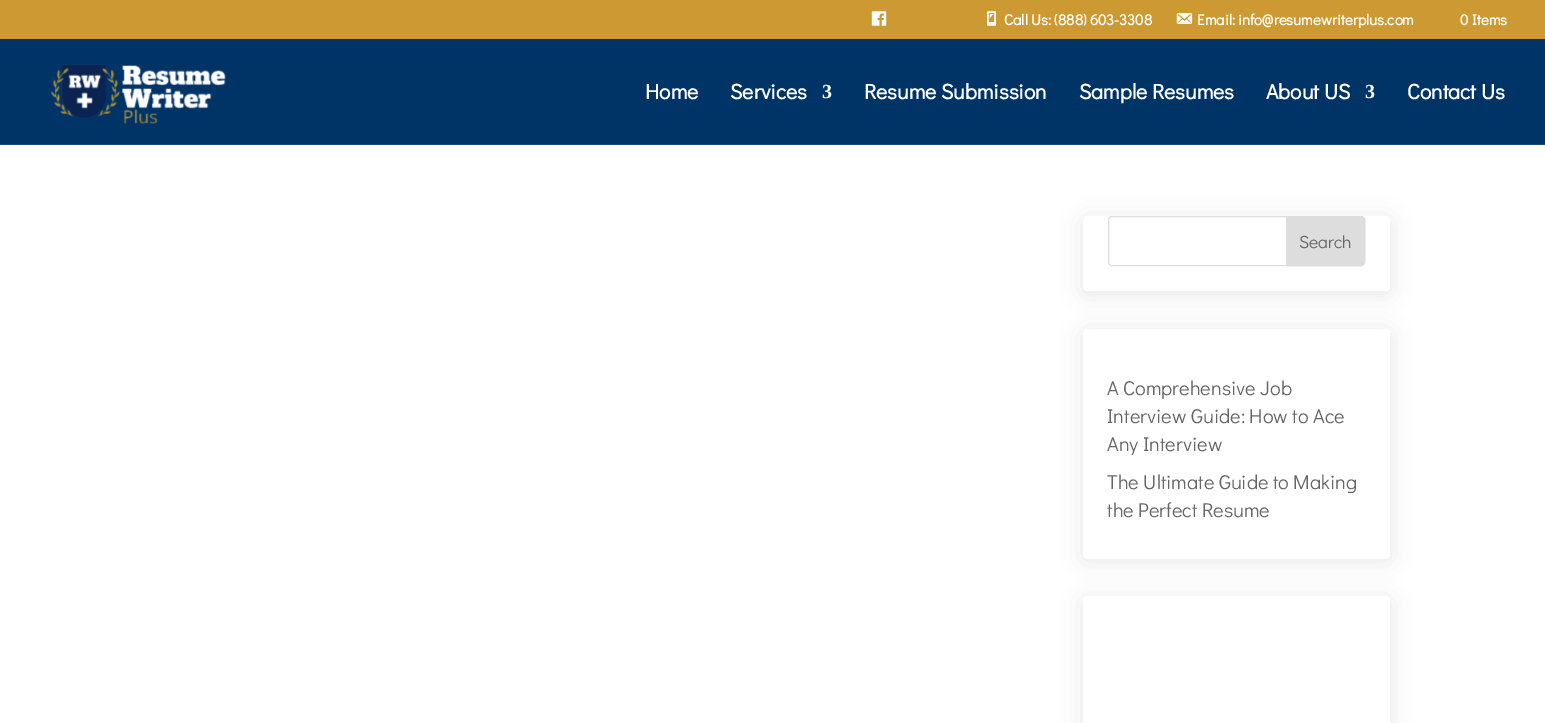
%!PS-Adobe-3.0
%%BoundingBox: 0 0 1545 723
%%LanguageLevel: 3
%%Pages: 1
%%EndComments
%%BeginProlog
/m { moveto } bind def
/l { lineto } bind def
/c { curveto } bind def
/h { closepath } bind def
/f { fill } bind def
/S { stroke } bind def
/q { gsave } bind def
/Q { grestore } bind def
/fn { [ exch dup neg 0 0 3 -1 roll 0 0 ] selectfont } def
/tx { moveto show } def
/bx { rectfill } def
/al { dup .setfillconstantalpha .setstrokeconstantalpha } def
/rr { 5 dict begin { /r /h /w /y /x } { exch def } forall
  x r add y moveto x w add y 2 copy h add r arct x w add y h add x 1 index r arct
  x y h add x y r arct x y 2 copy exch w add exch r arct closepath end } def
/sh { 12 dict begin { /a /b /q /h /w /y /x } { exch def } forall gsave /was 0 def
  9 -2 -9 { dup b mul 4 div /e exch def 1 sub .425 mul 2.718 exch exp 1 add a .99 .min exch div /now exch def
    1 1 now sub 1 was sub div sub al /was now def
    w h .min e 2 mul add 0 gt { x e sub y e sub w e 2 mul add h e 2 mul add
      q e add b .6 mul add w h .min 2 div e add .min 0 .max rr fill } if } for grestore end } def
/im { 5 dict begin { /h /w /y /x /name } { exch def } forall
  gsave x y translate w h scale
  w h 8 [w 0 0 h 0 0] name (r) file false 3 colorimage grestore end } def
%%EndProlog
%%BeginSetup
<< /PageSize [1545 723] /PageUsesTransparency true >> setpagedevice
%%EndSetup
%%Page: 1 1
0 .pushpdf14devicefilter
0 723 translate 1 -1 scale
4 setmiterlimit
1 setgray
0 0 1545 723 bx
0.8 0.6 0.2 setrgbcolor
0 0 1545 39 bx
(image0.raw) 871 11 16 15 im
(image1.raw) 987 11 9 15 im
/DidactGothic-Bold 15 fn
1 setgray
(Call Us: \(888\) 603-3308) 1004 25 tx
(image2.raw) 1176 13 17 11 im
(Email: info@resumewriterplus.com) 1197 25 tx
(0 Items) 1460 25 tx
0 0.2 0.4 setrgbcolor
0 39 1545 105 bx
0.102 0.278 0.459 setrgbcolor
0 144 1545 1 bx
(image3.raw) 51 64 175 60 im
/DidactGothic-Bold 21.25 fn
1 setgray
(Home) 645 99 tx
(Services) 730 99 tx
/LiberationSerif-Bold 20 fn
(3) 822 98 tx
/DidactGothic-Bold 21.25 fn
(Resume Submission) 864 99 tx
(Sample Resumes) 1079 99 tx
(About US) 1266 99 tx
/LiberationSerif-Bold 20 fn
(3) 1365 98 tx
/DidactGothic-Bold 21.25 fn
(Contact Us) 1407 99 tx
0 setgray
1083 219 307 75 4 11 0.1 sh
1 setgray
1083 216 307 75 4 rr f
0.867 setgray
1108.5 216.5 256 49 3.5 rr S
1286.5 216.5 m 1361 216.5 l 1363 216.5 1364.5 218 1364.5 220 c 1364.5 262 l 1364.5 264 1363 265.5 1361 265.5 c 1286.5 265.5 l h q f Q
S
/DidactGothic-Regular 17.5 fn
0.4 setgray
(Search) 1299 248 tx
0 setgray
1083 331 307 230 4 11 0.1 sh
1 setgray
1083 329 307 230 4 rr f
/DidactGothic-Regular 20 fn
0.4 setgray
(A Comprehensive Job) 1107 395 tx
(Interview Guide: How to Ace) 1107 423 tx
(Any Interview) 1107 451 tx
(The Ultimate Guide to Making) 1107 489 tx
(the Perfect Resume) 1107 517 tx
0 setgray
1083 599 307 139 4 11 0.1 sh
1 setgray
1083 596 307 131 4 rr f
.poppdf14devicefilter showpage
%%EOF
